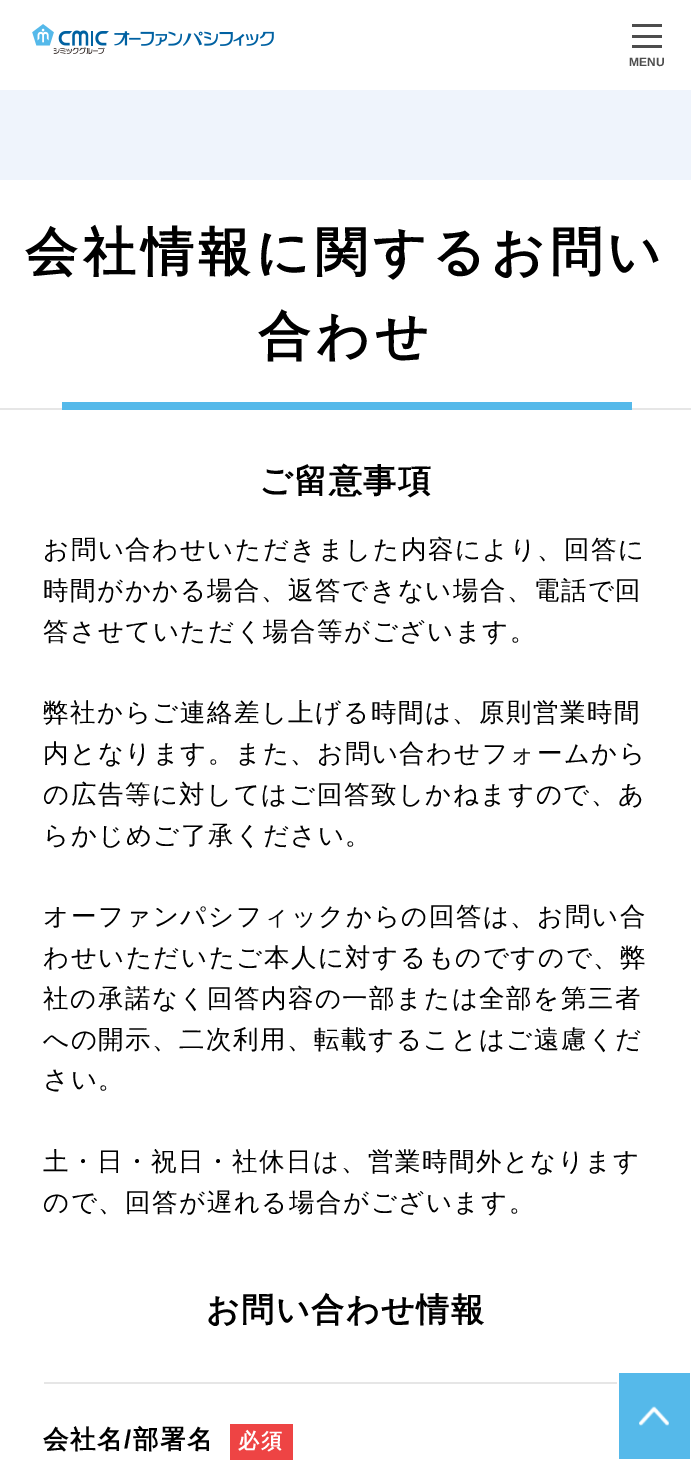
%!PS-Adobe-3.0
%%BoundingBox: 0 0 691 1461
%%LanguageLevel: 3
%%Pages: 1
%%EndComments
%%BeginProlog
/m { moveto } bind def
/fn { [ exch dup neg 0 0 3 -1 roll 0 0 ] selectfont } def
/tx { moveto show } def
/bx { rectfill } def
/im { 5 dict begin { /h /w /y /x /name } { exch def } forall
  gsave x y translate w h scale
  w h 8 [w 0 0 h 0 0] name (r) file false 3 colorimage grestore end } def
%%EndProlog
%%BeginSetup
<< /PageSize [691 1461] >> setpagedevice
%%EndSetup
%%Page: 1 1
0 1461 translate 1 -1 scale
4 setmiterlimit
1 setgray
0 0 691 1461 bx
(image0.raw) 32 24 242 30 im
0.302 setgray
632 24 30 3 bx
632 35 30 3 bx
632 45 30 3 bx
/LiberationSans-Bold 12 fn
(MENU) 629 66 tx
0.937 0.957 0.988 setrgbcolor
0 90 691 90 bx
0.902 setgray
0 408 691 2 bx
/WenQuanYiZenHei-Bold 52.5 fn
0 setgray
25 270 m 5.25 0 (会社情報に関するお問い) ashow
258 354 m 5.25 0 (合わせ) ashow
0.333 0.725 0.918 setrgbcolor
62 402 570 8 bx
/WenQuanYiZenHei-Bold 33 fn
0 setgray
259 492 m 1.5 0 (ご留意事項) ashow
/WenQuanYiZenHei-Medium 25.5 fn
43 558 m 1.5 0 (お問い合わせいただきました内容により、回答に) ashow
43 599 m 1.5 0 (時間がかかる場合、返答できない場合、電話で回) ashow
43 640 m 1.5 0 (答させていただく場合等がございます。) ashow
43 721 m 1.5 0 (弊社からご連絡差し上げる時間は、原則営業時間) ashow
43 762 m 1.5 0 (内となります。また、お問い合わせフォームから) ashow
43 803 m 1.5 0 (の広告等に対してはご回答致しかねますので、あ) ashow
43 844 m 1.5 0 (らかじめご了承ください。) ashow
43 925 m 1.5 0 (オーファンパシフィックからの回答は、お問い合) ashow
43 966 m 1.5 0 (わせいただいたご本人に対するものですので、弊) ashow
43 1007 m 1.5 0 (社の承諾なく回答内容の一部または全部を第三者) ashow
43 1048 m 1.5 0 (への開示、二次利用、転載することはご遠慮くだ) ashow
43 1088 m 1.5 0 (さい。) ashow
43 1170 m 1.5 0 (土・日・祝日・社休日は、営業時間外となります) ashow
43 1211 m 1.5 0 (ので、回答が遅れる場合がございます。) ashow
/WenQuanYiZenHei-Bold 33 fn
206 1321 m 1.5 0 (お問い合わせ情報) ashow
0.902 setgray
44 1382 573 2 bx
/WenQuanYiZenHei-Bold 25.5 fn
0 setgray
43 1448 m 1.5 0 (会社名) ashow
/LiberationSans-Bold 25.5 fn
124 1448 m 1.5 0 (/) ashow
/WenQuanYiZenHei-Bold 25.5 fn
133 1448 m 1.5 0 (部署名) ashow
0.933 0.267 0.267 setrgbcolor
230 1424 63 36 bx
/WenQuanYiZenHei-Bold 21 fn
1 setgray
238 1448 m 1.5 0 (必須) ashow
0.333 0.725 0.918 setrgbcolor
619 1373 71 86 bx
(image1.raw) 639 1406 30 20 im
showpage
%%EOF
